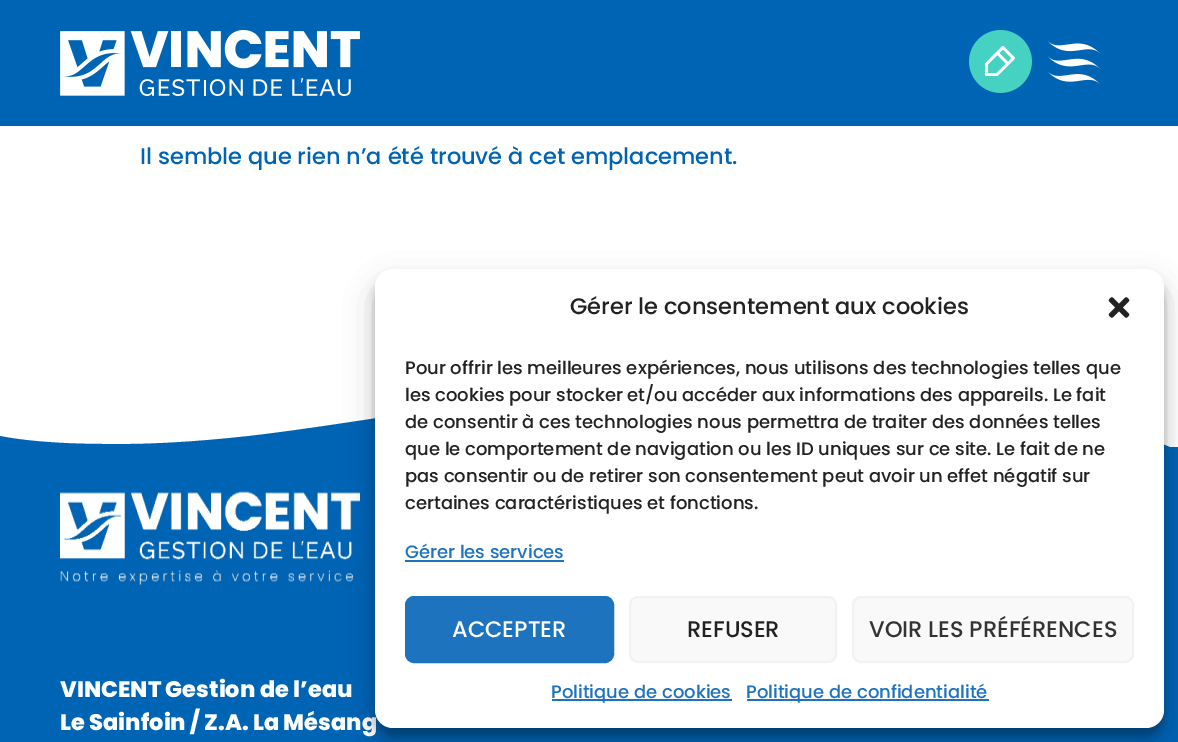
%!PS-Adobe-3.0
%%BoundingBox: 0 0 1178 742
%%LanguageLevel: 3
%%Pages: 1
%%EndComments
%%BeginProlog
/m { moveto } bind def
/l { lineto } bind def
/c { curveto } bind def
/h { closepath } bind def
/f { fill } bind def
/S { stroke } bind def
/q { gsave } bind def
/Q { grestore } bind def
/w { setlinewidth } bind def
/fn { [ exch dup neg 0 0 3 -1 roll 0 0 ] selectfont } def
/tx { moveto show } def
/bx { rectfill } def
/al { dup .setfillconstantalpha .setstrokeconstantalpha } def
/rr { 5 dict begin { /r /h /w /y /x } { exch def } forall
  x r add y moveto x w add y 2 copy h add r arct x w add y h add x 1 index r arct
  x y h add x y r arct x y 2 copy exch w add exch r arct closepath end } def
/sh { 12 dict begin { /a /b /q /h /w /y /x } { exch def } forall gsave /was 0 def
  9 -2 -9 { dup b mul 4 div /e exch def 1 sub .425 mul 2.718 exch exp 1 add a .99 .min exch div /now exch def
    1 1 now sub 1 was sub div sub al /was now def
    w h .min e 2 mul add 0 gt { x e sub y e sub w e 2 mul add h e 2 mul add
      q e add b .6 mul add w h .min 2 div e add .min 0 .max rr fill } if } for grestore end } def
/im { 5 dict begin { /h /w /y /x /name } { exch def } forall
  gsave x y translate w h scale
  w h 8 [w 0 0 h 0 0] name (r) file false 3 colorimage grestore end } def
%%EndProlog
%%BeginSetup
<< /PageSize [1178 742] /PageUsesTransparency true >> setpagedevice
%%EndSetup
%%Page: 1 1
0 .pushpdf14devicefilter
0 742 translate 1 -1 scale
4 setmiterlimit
1 setgray
0 0 1178 742 bx
0 0.392 0.706 setrgbcolor
0 0 1178 126 bx
(image0.raw) 60 30 300 66 im
(image1.raw) 969 30 63 63 im
(image2.raw) 1047 41 54 44 im
/Poppins-Medium 22.5 fn
(Il semble que rien n’a été trouvé à cet emplacement.) 140 164 tx
0 436 m 0 436 34 444 105 444 c 158 445 218 440 266 434 c 409 416 599 377 778 375 c 1006 372 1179 451 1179 451 c 0 451 l h f
0 447 1178 295 bx
(image3.raw) 60 491 300 94 im
/Poppins-ExtraBold 22.5 fn
1 setgray
(VINCENT Gestion de l’eau) 60 697 tx
(Le Sainfoin / Z.A. La Mésang) 60 730 tx
0 setgray
375 278 789 459 18 4.5 0.23 sh
375 284 789 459 18 15 0.19 sh
1 setgray
375 269 789 459 18 rr f
/Poppins-Medium 22.5 fn
0.133 setgray
(Gérer le consentement aux cookies) 570 314 tx
(image4.raw) 1108 297 22 21 im
/Poppins-Medium 18 fn
(Pour offrir les meilleures expériences, nous utilisons des technologies telles que) 405 374 tx
(les cookies pour stocker et/ou accéder aux informations des appareils. Le fait) 405 401 tx
(de consentir à ces technologies nous permettra de traiter des données telles) 405 428 tx
(que le comportement de navigation ou les ID uniques sur ce site. Le fait de ne) 405 455 tx
(pas consentir ou de retirer son consentement peut avoir un effet négatif sur) 405 482 tx
(certaines caractéristiques et fonctions.) 405 509 tx
0.118 0.451 0.745 setrgbcolor
(Gérer les services) 405 558 tx
405 560 159 2 bx
406 597 207 65 8 rr q f Q
2 w
S
/Poppins-Medium 22.5 fn
1 setgray
(ACCEPTER) 452 637 tx
0.976 setgray
630 597 206 65 8 rr q f Q
0.949 setgray
S
0.133 setgray
(REFUSER) 687 637 tx
0.976 setgray
853 597 280 65 8 rr q f Q
0.949 setgray
S
0.2 setgray
(VOIR LES PRÉFÉRENCES) 869 637 tx
0.118 0.451 0.745 setrgbcolor
552 699 180 2 bx
/Poppins-Medium 18 fn
(Politique de cookies) 551 698 tx
747 699 242 2 bx
(Politique de confidentialité) 746 698 tx
.poppdf14devicefilter showpage
%%EOF
